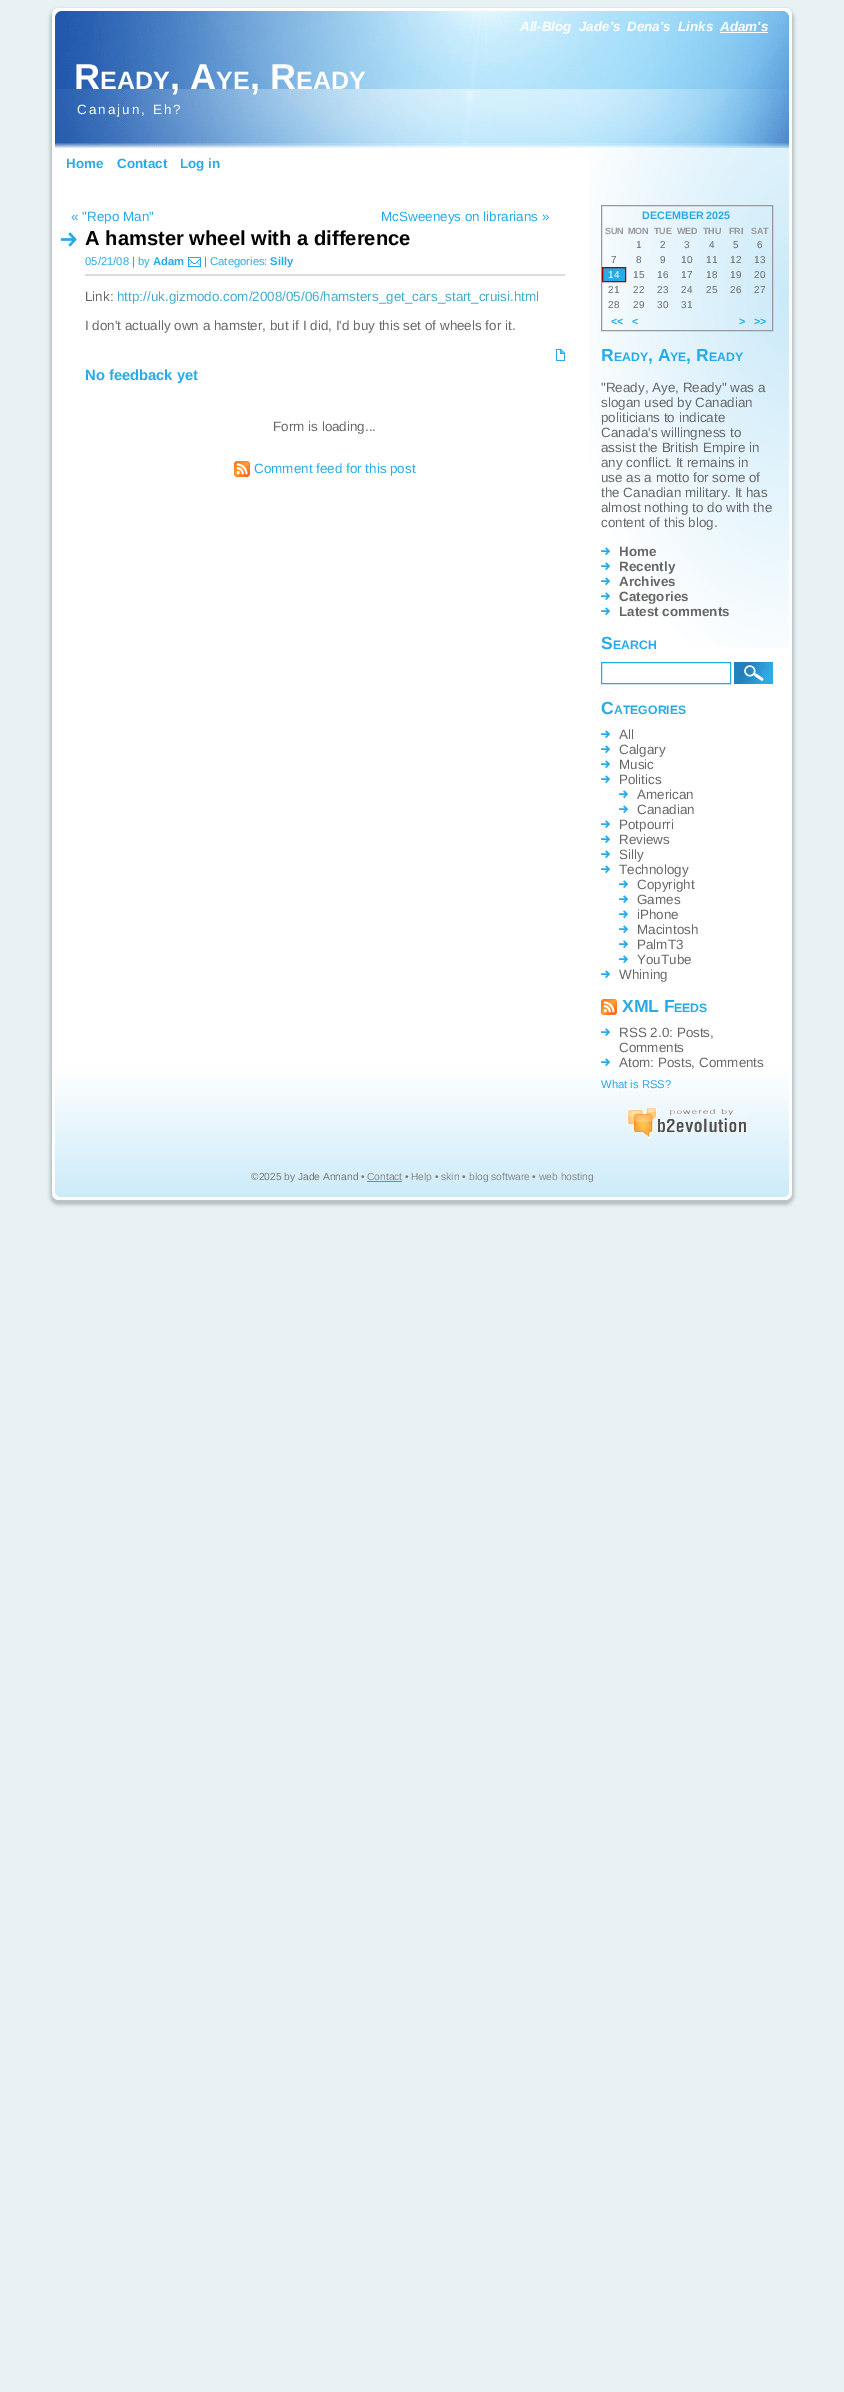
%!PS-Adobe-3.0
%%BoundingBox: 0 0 844 2392
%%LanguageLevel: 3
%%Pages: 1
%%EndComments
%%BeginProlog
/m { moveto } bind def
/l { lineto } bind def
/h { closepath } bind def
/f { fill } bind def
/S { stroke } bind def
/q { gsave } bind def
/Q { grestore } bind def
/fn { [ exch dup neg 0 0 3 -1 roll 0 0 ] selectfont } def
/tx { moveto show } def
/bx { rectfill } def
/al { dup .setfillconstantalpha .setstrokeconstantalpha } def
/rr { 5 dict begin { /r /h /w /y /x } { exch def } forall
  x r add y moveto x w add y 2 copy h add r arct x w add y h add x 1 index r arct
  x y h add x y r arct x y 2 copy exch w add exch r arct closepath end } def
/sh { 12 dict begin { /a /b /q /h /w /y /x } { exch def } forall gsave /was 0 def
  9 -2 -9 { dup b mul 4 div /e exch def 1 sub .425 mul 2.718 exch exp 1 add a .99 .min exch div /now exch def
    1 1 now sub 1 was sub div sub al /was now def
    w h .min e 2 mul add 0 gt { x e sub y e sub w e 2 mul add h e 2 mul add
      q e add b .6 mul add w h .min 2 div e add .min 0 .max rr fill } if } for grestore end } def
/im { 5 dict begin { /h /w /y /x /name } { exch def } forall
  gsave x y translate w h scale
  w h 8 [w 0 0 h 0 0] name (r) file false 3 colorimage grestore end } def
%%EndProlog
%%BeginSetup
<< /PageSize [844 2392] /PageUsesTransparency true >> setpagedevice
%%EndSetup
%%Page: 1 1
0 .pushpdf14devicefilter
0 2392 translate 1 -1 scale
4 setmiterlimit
0.91 0.949 0.961 setrgbcolor
0 0 844 2392 bx
0 setgray
50 9 744 1196 9 1.5 0.2 sh
1 setgray
52 8 740 1192 7 rr f
(image0.raw) 55 11 734 137 im
/LiberationSans-BoldItalic 13.45 fn
(All-Blog) 520 31 tx
(Jade's) 579 31 tx
(Dena's) 627 31 tx
(Links) 678 31 tx
(Adam's) 720 31 tx
720 32 48 1 bx
/LiberationSans-Bold 36 fn
(R) 74 89 tx
/LiberationSans-Bold 25 fn
(EADY) 100 89 tx
/LiberationSans-Bold 36 fn
(, A) 170 89 tx
/LiberationSans-Bold 25 fn
(YE) 216 89 tx
/LiberationSans-Bold 36 fn
(, R) 250 89 tx
/LiberationSans-Bold 25 fn
(EADY) 296 89 tx
/LiberationSans-Regular 13.45 fn
77 114 m 2 0 (Canajun, Eh?) ashow
/LiberationSans-Bold 13.45 fn
0.149 0.667 0.91 setrgbcolor
(Home) 66 168 tx
(Contact) 117 168 tx
(Log in) 180 168 tx
/LiberationSans-Regular 13.45 fn
(« "Repo Man") 71 221 tx
(McSweeneys on librarians ») 381 221 tx
(image1.raw) 60 232 17 15 im
/LiberationSans-Bold 20.2 fn
0 setgray
(A hamster wheel with a difference) 85 245 tx
0.867 setgray
85 274 480 2 bx
/LiberationSans-Regular 11.25 fn
0.149 0.667 0.91 setrgbcolor
(05/21/08 | by) 85 265 tx
/LiberationSans-Bold 11.25 fn
(Adam) 153 265 tx
(image2.raw) 188 257 13 10 im
/LiberationSans-Regular 11.25 fn
(| Categories:) 204 265 tx
/LiberationSans-Bold 11.25 fn
(Silly) 270 265 tx
/LiberationSans-Regular 13.45 fn
0.4 setgray
(Link:) 85 301 tx
0.267 0.667 0.8 setrgbcolor
(http://uk.gizmodo.com/2008/05/06/hamsters_get_cars_start_cruisi.html) 117 301 tx
0.4 setgray
(I don't actually own a hamster, but if I did, I'd buy this set of wheels for it.) 85 330 tx
(image3.raw) 556 349 9 12 im
/LiberationSans-Bold 14.75 fn
0.149 0.667 0.91 setrgbcolor
(No feedback yet) 85 380 tx
/LiberationSans-Regular 13.45 fn
0.4 setgray
(Form is loading...) 273 431 tx
(image4.raw) 234 461 16 16 im
0.149 0.667 0.91 setrgbcolor
(Comment feed for this post) 254 473 tx
q 589 148 m 789 148 l 789 648 l 589 648 l h clip newpath 789 298 translate 283 495 scale
<< /ShadingType 3 /ColorSpace /DeviceRGB /Coords [0 0 0 0 0 1] /Extend [true true] /Function << /FunctionType 3 /Domain [0 1] /Functions [<< /FunctionType 2 /Domain [0 1] /C0 [0.796 0.918 0.976] /C1 [1 1 1] /N 1 >> << /FunctionType 2 /Domain [0 1] /C0 [1 1 1] /C1 [1 1 1] /N 1 >>] /Bounds [0.8] /Encode [0 1 0 1] >> >> shfill Q
0.6 setgray
601.5 205.5 171 125 rectstroke
/LiberationSans-Bold 10.75 fn
0.149 0.667 0.91 setrgbcolor
(DECEMBER 2025) 642 219 tx
/LiberationSans-Bold 9 fn
0.6 setgray
(SUN) 605 234 tx
(MON) 628 234 tx
(TUE) 654 234 tx
(WED) 677 234 tx
(THU) 703 234 tx
(FRI) 729 234 tx
(SAT) 751 234 tx
/LiberationSans-Regular 10 fn
0.4 setgray
(1) 636 248 tx
(2) 660 248 tx
(3) 684 248 tx
(4) 709 248 tx
(5) 733 248 tx
(6) 757 248 tx
(7) 611 263 tx
(8) 636 263 tx
(9) 660 263 tx
(10) 681 263 tx
(11) 706 263 tx
(12) 730 263 tx
(13) 754 263 tx
0.149 0.667 0.91 setrgbcolor
602.5 267.5 m 625.5 267.5 l 625.5 281.5 l 602.5 281.5 l h q f Q
0.6 0 0 setrgbcolor
S
1 setgray
(14) 608 278 tx
0.4 setgray
(15) 633 278 tx
(16) 657 278 tx
(17) 681 278 tx
(18) 706 278 tx
(19) 730 278 tx
(20) 754 278 tx
(21) 608 293 tx
(22) 633 293 tx
(23) 657 293 tx
(24) 681 293 tx
(25) 706 293 tx
(26) 730 293 tx
(27) 754 293 tx
(28) 608 308 tx
(29) 633 308 tx
(30) 657 308 tx
(31) 681 308 tx
/LiberationSans-Bold 10.75 fn
0.149 0.667 0.91 setrgbcolor
(<<) 611 325 tx
(<) 632 325 tx
(>) 739 325 tx
(>>) 754 325 tx
/LiberationSans-Bold 17.5 fn
(R) 601 361 tx
/LiberationSans-Bold 12.25 fn
(EADY) 614 361 tx
/LiberationSans-Bold 17.5 fn
(, A) 648 361 tx
/LiberationSans-Bold 12.25 fn
(YE) 670 361 tx
/LiberationSans-Bold 17.5 fn
(, R) 686 361 tx
/LiberationSans-Bold 12.25 fn
(EADY) 709 361 tx
/LiberationSans-Regular 13.45 fn
0.4 setgray
("Ready, Aye, Ready" was a) 601 392 tx
(slogan used by Canadian) 601 407 tx
(politicians to indicate) 601 422 tx
(Canada's willingness to) 601 437 tx
(assist the British Empire in) 601 452 tx
(any conflict. It remains in) 601 467 tx
(use as a motto for some of) 601 482 tx
(the Canadian military. It has) 601 497 tx
(almost nothing to do with the) 601 512 tx
(content of this blog.) 601 527 tx
(image5.raw) 601 547 10 8 im
/LiberationSans-Bold 13.45 fn
(Home) 619 556 tx
(image5.raw) 601 562 10 8 im
(Recently) 619 571 tx
(image5.raw) 601 577 10 8 im
(Archives) 619 586 tx
(image5.raw) 601 592 10 8 im
(Categories) 619 601 tx
(image5.raw) 601 607 10 8 im
(Latest comments) 619 616 tx
/LiberationSans-Bold 17.5 fn
0.149 0.667 0.91 setrgbcolor
(S) 601 649 tx
/LiberationSans-Bold 12.25 fn
(EARCH) 613 649 tx
601.5 662.5 129 21 rectstroke
(image6.raw) 734 662 39 22 im
/LiberationSans-Bold 17.5 fn
(C) 601 714 tx
/LiberationSans-Bold 12.25 fn
(ATEGORIES) 614 714 tx
(image5.raw) 601 730 10 8 im
/LiberationSans-Regular 13.45 fn
0.4 setgray
(All) 619 739 tx
(image5.raw) 601 745 10 8 im
(Calgary) 619 754 tx
(image5.raw) 601 760 10 8 im
(Music) 619 769 tx
(image5.raw) 601 775 10 8 im
(Politics) 619 784 tx
(image5.raw) 619 790 10 8 im
(American) 637 799 tx
(image5.raw) 619 805 10 8 im
(Canadian) 637 814 tx
(image5.raw) 601 820 10 8 im
(Potpourri) 619 829 tx
(image5.raw) 601 835 10 8 im
(Reviews) 619 844 tx
(image5.raw) 601 850 10 8 im
(Silly) 619 859 tx
(image5.raw) 601 865 10 8 im
(Technology) 619 874 tx
(image5.raw) 619 880 10 8 im
(Copyright) 637 889 tx
(image5.raw) 619 895 10 8 im
(Games) 637 904 tx
(image5.raw) 619 910 10 8 im
(iPhone) 637 919 tx
(image5.raw) 619 925 10 8 im
(Macintosh) 637 934 tx
(image5.raw) 619 940 10 8 im
(PalmT3) 637 949 tx
(image5.raw) 619 955 10 8 im
(YouTube) 637 964 tx
(image5.raw) 601 970 10 8 im
(Whining) 619 979 tx
(image4.raw) 601 999 16 16 im
/LiberationSans-Bold 17.5 fn
0.149 0.667 0.91 setrgbcolor
(XML F) 622 1012 tx
/LiberationSans-Bold 12.25 fn
(EEDS) 674 1012 tx
(image5.raw) 601 1028 10 8 im
/LiberationSans-Regular 13.45 fn
0.4 setgray
(RSS 2.0: Posts,) 619 1037 tx
(Comments) 619 1052 tx
(image5.raw) 601 1058 10 8 im
q 55 1067 734 130 7 rr clip newpath
<< /ShadingType 2 /ColorSpace /DeviceRGB /Coords [422 1067 422 1197] /Extend [true true] /Function << /FunctionType 2 /Domain [0 1] /C0 [1 1 1] /C1 [0.8 0.922 0.976] /N 1 >> >> shfill Q
(Atom: Posts, Comments) 619 1067 tx
/LiberationSans-Regular 11.25 fn
0.149 0.667 0.91 setrgbcolor
(What is RSS?) 601 1088 tx
(image7.raw) 627 1108 120 30 im
/LiberationSans-Regular 10.25 fn
0.467 setgray
(©2025 by Jade Annand •) 251 1180 tx
0.533 setgray
(Contact) 367 1180 tx
367 1181 35 1 bx
0.467 setgray
(•) 405 1180 tx
0.533 setgray
(Help) 411 1180 tx
0.467 setgray
(•) 435 1180 tx
0.533 setgray
(skin) 441 1180 tx
0.467 setgray
(•) 462 1180 tx
0.533 setgray
(blog software) 469 1180 tx
0.467 setgray
(•) 532 1180 tx
0.533 setgray
(web hosting) 539 1180 tx
.poppdf14devicefilter showpage
%%EOF
